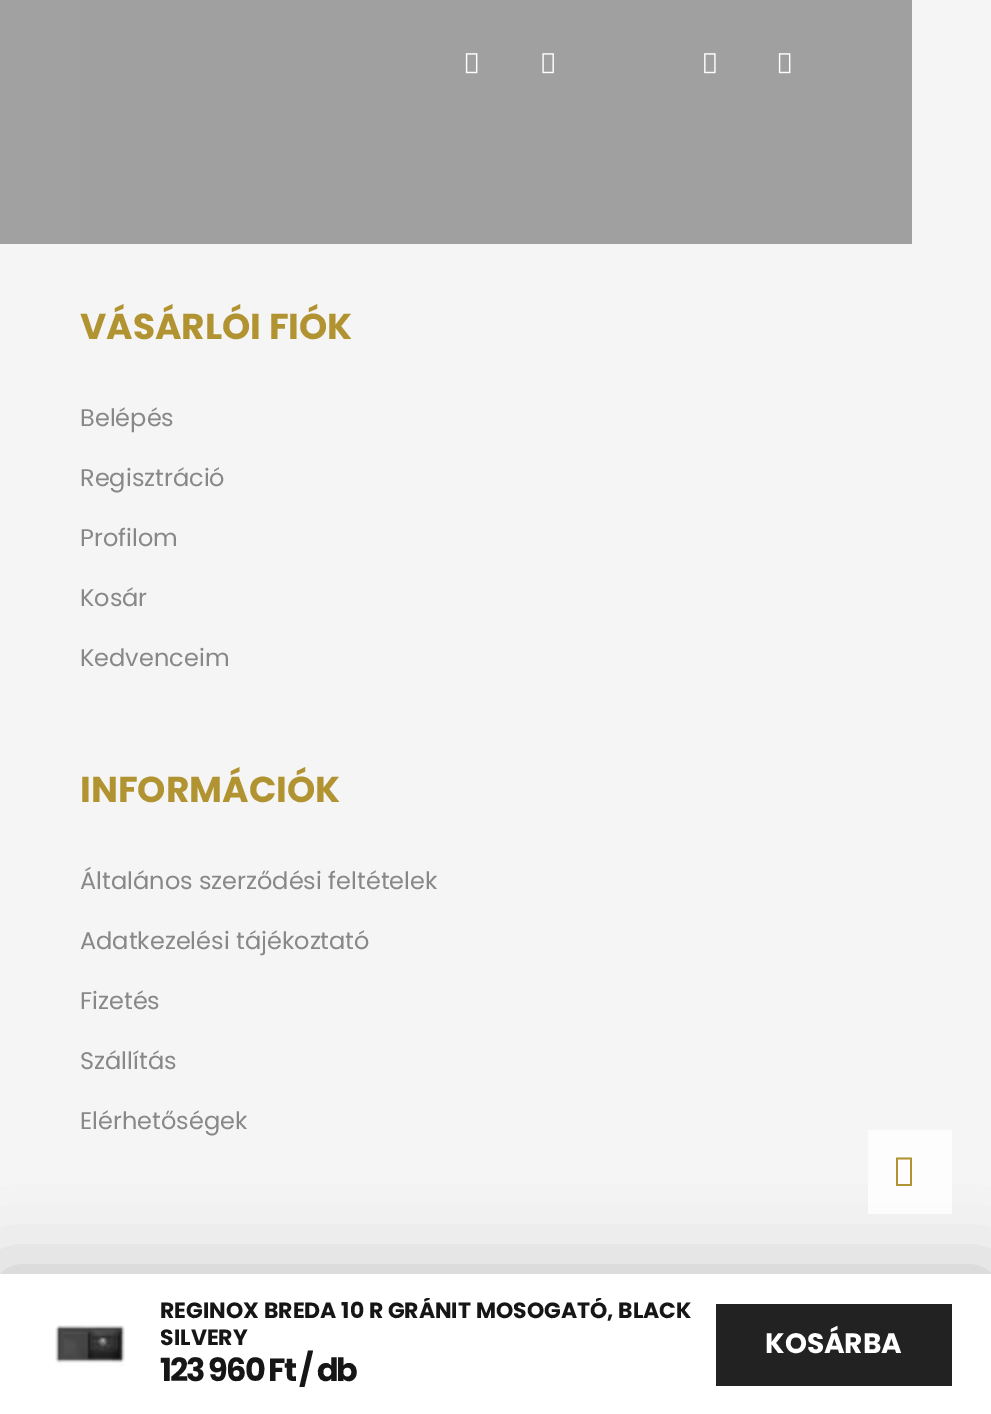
%!PS-Adobe-3.0
%%BoundingBox: 0 0 991 1414
%%LanguageLevel: 3
%%Pages: 1
%%EndComments
%%BeginProlog
/m { moveto } bind def
/l { lineto } bind def
/h { closepath } bind def
/f { fill } bind def
/q { gsave } bind def
/Q { grestore } bind def
/fn { [ exch dup neg 0 0 3 -1 roll 0 0 ] selectfont } def
/tx { moveto show } def
/bx { rectfill } def
/al { dup .setfillconstantalpha .setstrokeconstantalpha } def
/rr { 5 dict begin { /r /h /w /y /x } { exch def } forall
  x r add y moveto x w add y 2 copy h add r arct x w add y h add x 1 index r arct
  x y h add x y r arct x y 2 copy exch w add exch r arct closepath end } def
/sh { 12 dict begin { /a /b /q /h /w /y /x } { exch def } forall gsave /was 0 def
  9 -2 -9 { dup b mul 4 div /e exch def 1 sub .425 mul 2.718 exch exp 1 add a .99 .min exch div /now exch def
    1 1 now sub 1 was sub div sub al /was now def
    w h .min e 2 mul add 0 gt { x e sub y e sub w e 2 mul add h e 2 mul add
      q e add b .6 mul add w h .min 2 div e add .min 0 .max rr fill } if } for grestore end } def
/im { 5 dict begin { /h /w /y /x /name } { exch def } forall
  gsave x y translate w h scale
  w h 8 [w 0 0 h 0 0] name (r) file false 3 colorimage grestore end } def
%%EndProlog
%%BeginSetup
<< /PageSize [991 1414] /PageUsesTransparency true >> setpagedevice
%%EndSetup
%%Page: 1 1
0 .pushpdf14devicefilter
0 1414 translate 1 -1 scale
4 setmiterlimit
0.961 setgray
0 0 991 1414 bx
0.627 setgray
80 0 832 244 bx
0.631 setgray
0 0 80 244 bx
(image0.raw) 465 53 13 21 im
(image1.raw) 542 53 12 21 im
(image2.raw) 704 53 12 21 im
(image0.raw) 778 53 13 21 im
/Poppins-Bold 36 fn
0.694 0.576 0.192 setrgbcolor
(VÁSÁRLÓI FIÓK) 80 339 tx
/Poppins-Regular 24 fn
0.533 setgray
(Belépés) 80 426 tx
(Regisztráció) 80 486 tx
(Profilom) 80 546 tx
(Kosár) 80 606 tx
(Kedvenceim) 80 666 tx
/Poppins-Bold 36 fn
0.694 0.576 0.192 setrgbcolor
(INFORMÁCIÓK) 80 802 tx
/Poppins-Regular 24 fn
0.533 setgray
(Általános szerződési feltételek) 80 889 tx
(Adatkezelési tájékoztató) 80 949 tx
(Fizetés) 80 1009 tx
(Szállítás) 80 1069 tx
(Elérhetőségek) 80 1129 tx
0 setgray
0 1274 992 140 0 40 0.2 sh
1 setgray
0 1274 991 140 bx
(image3.raw) 55 1325 70 41 im
q
160 1298 536 54 rectclip
/Poppins-Bold 22 fn
0.086 setgray
(REGINOX BREDA 10 R GRÁNIT MOSOGATÓ, BLACK) 160 1318 tx
Q
/Poppins-Bold 22 fn
0.086 setgray
(SILVERY) 160 1345 tx
/Poppins-Bold 32 fn
160 1381 m -2 0 (123 960 Ft / db) ashow
q 716 1304 m 952 1304 l 952 1386 l 716 1386 l h clip newpath
<< /ShadingType 2 /ColorSpace /DeviceRGB /Coords [244 1345 952 1345] /Extend [true true] /Function << /FunctionType 3 /Domain [0 1] /Functions [<< /FunctionType 2 /Domain [0 1] /C0 [0.694 0.576 0.192] /C1 [0.431 0.357 0.141] /N 1 >> << /FunctionType 2 /Domain [0 1] /C0 [0.431 0.357 0.141] /C1 [0.133 0.133 0.133] /N 1 >> << /FunctionType 2 /Domain [0 1] /C0 [0.133 0.133 0.133] /C1 [0.133 0.133 0.133] /N 1 >>] /Bounds [0.33 0.67] /Encode [0 1 0 1 0 1] >> >> shfill Q
/Poppins-Bold 28 fn
1 setgray
(KOSÁRBA) 765 1353 tx
0.8 al
868 1130 84 84 bx
1 al
0.694 0.576 0.192 setrgbcolor
896 1186 m 896 1157.5 l 912 1157.5 l 912 1186 l h 898 1184 m 910 1184 l 910 1159.5 l 898 1159.5 l h f
.poppdf14devicefilter showpage
%%EOF
